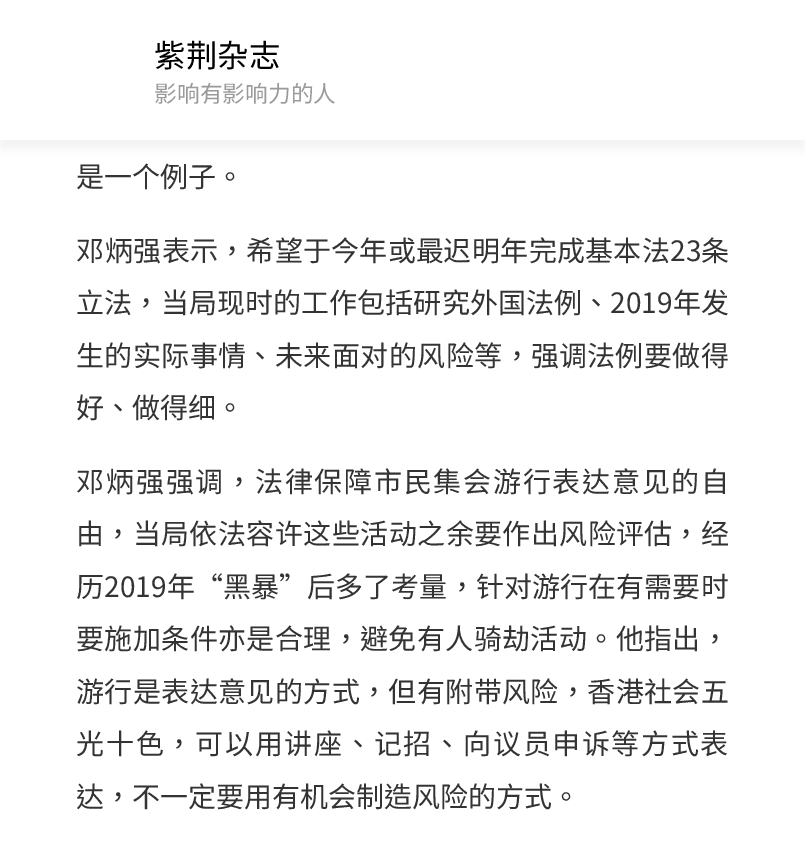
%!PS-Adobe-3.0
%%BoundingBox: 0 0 805 861
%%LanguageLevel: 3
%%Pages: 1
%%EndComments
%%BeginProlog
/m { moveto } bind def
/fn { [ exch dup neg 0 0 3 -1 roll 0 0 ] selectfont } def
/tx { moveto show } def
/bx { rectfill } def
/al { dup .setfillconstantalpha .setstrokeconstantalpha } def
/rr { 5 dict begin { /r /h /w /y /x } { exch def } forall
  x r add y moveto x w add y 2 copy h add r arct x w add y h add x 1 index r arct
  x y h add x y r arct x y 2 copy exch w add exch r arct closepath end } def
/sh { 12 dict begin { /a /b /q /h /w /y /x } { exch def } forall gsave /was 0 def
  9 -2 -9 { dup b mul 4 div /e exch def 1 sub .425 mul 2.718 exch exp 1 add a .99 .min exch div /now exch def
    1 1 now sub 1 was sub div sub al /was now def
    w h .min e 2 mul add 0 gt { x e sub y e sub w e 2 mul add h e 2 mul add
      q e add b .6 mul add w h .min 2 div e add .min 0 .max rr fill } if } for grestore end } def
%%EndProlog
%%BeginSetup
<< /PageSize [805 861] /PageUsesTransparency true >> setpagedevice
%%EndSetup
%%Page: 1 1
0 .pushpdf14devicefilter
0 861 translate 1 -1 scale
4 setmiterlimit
1 setgray
0 0 805 861 bx
0.761 setgray
0 9 805 140 0 6 0.24 sh
1 setgray
0 3 805 137 bx
/NotoSansSC-Regular 31.5 fn
0 setgray
(紫荆杂志) 154 67 tx
/NotoSansTC-Regular 22.75 fn
0.604 setgray
(影响有影响力的人) 154 102 tx
/NotoSansTC-Regular 28 fn
0.2 setgray
(是一个例子。) 76 187 tx
/NotoSansSC-Regular 28 fn
76 261 m 0.25 0 (邓) ashow
/NotoSansTC-Regular 28 fn
105 261 m 0.25 0 (炳强表示，希望于今年或最) ashow
/NotoSansSC-Regular 28 fn
443 261 m 0.25 0 (迟) ashow
/NotoSansTC-Regular 28 fn
472 261 m 0.25 0 (明年完成基本法23条) ashow
76 313 m 0.1 0 (立法，) ashow
/NotoSansSC-Regular 28 fn
161 313 m 0.1 0 (当) ashow
/NotoSansTC-Regular 28 fn
189 313 m 0.1 0 (局) ashow
/NotoSansSC-Regular 28 fn
217 313 m 0.1 0 (现时) ashow
/NotoSansTC-Regular 28 fn
273 313 m 0.1 0 (的工作包括研究外国法例、2019年发) ashow
76 366 m 0.4 0 (生的实际事情、未) ashow
/NotoSansSC-Regular 28 fn
303 366 m 0.4 0 (来) ashow
/NotoSansTC-Regular 28 fn
332 366 m 0.4 0 (面) ashow
/NotoSansSC-Regular 28 fn
360 366 m 0.4 0 (对) ashow
/NotoSansTC-Regular 28 fn
389 366 m 0.4 0 (的风险等，强) ashow
/NotoSansSC-Regular 28 fn
559 366 m 0.4 0 (调) ashow
/NotoSansTC-Regular 28 fn
587 366 m 0.4 0 (法例要做得) ashow
(好、做得) 76 418 tx
/NotoSansSC-Regular 28 fn
(细) 188 418 tx
/NotoSansTC-Regular 28 fn
(。) 216 418 tx
/NotoSansSC-Regular 28 fn
76 492 m 1.75 0 (邓) ashow
/NotoSansTC-Regular 28 fn
106 492 m 1.75 0 (炳强强) ashow
/NotoSansSC-Regular 28 fn
195 492 m 1.75 0 (调) ashow
/NotoSansTC-Regular 28 fn
225 492 m 1.75 0 (，法律保障市民集会游行表达意见的自) ashow
76 544 m 0.4 0 (由，) ashow
/NotoSansSC-Regular 28 fn
133 544 m 0.4 0 (当) ashow
/NotoSansTC-Regular 28 fn
161 544 m 0.4 0 (局依法容) ashow
/NotoSansSC-Regular 28 fn
275 544 m 0.4 0 (许这) ashow
/NotoSansTC-Regular 28 fn
332 544 m 0.4 0 (些活动之余要作出风险) ashow
/NotoSansSC-Regular 28 fn
616 544 m 0.4 0 (评) ashow
/NotoSansTC-Regular 28 fn
644 544 m 0.4 0 (估，经) ashow
/NotoSansSC-Regular 28 fn
76 597 m 0.1 0 (历) ashow
/NotoSansTC-Regular 28 fn
104 597 m 0.1 0 (2019年“黑暴”后多了考量，) ashow
/NotoSansSC-Regular 28 fn
476 597 m 0.1 0 (针对) ashow
/NotoSansTC-Regular 28 fn
532 597 m 0.1 0 (游行在有需要) ashow
/NotoSansSC-Regular 28 fn
701 597 m 0.1 0 (时) ashow
/NotoSansTC-Regular 28 fn
76 649 m 0.4 0 (要施加条件亦是合理，避免有人) ashow
/NotoSansSC-Regular 28 fn
474 649 m 0.4 0 (骑) ashow
/NotoSansTC-Regular 28 fn
502 649 m 0.4 0 (劫活动。他指出，) ashow
76 702 m 0.4 0 (游行是表达意见的方式，但有附) ashow
/NotoSansSC-Regular 28 fn
474 702 m 0.4 0 (带) ashow
/NotoSansTC-Regular 28 fn
502 702 m 0.4 0 (风险，香港社会五) ashow
76 754 m 1.75 0 (光十色，可以用) ashow
/NotoSansSC-Regular 28 fn
284 754 m 1.75 0 (讲) ashow
/NotoSansTC-Regular 28 fn
314 754 m 1.75 0 (座、) ashow
/NotoSansSC-Regular 28 fn
374 754 m 1.75 0 (记) ashow
/NotoSansTC-Regular 28 fn
403 754 m 1.75 0 (招、向) ashow
/NotoSansSC-Regular 28 fn
493 754 m 1.75 0 (议员) ashow
/NotoSansTC-Regular 28 fn
552 754 m 1.75 0 (申) ashow
/NotoSansSC-Regular 28 fn
582 754 m 1.75 0 (诉) ashow
/NotoSansTC-Regular 28 fn
611 754 m 1.75 0 (等方式表) ashow
(达，不一定要用有机会制造风险的方式。) 76 807 tx
.poppdf14devicefilter showpage
%%EOF
